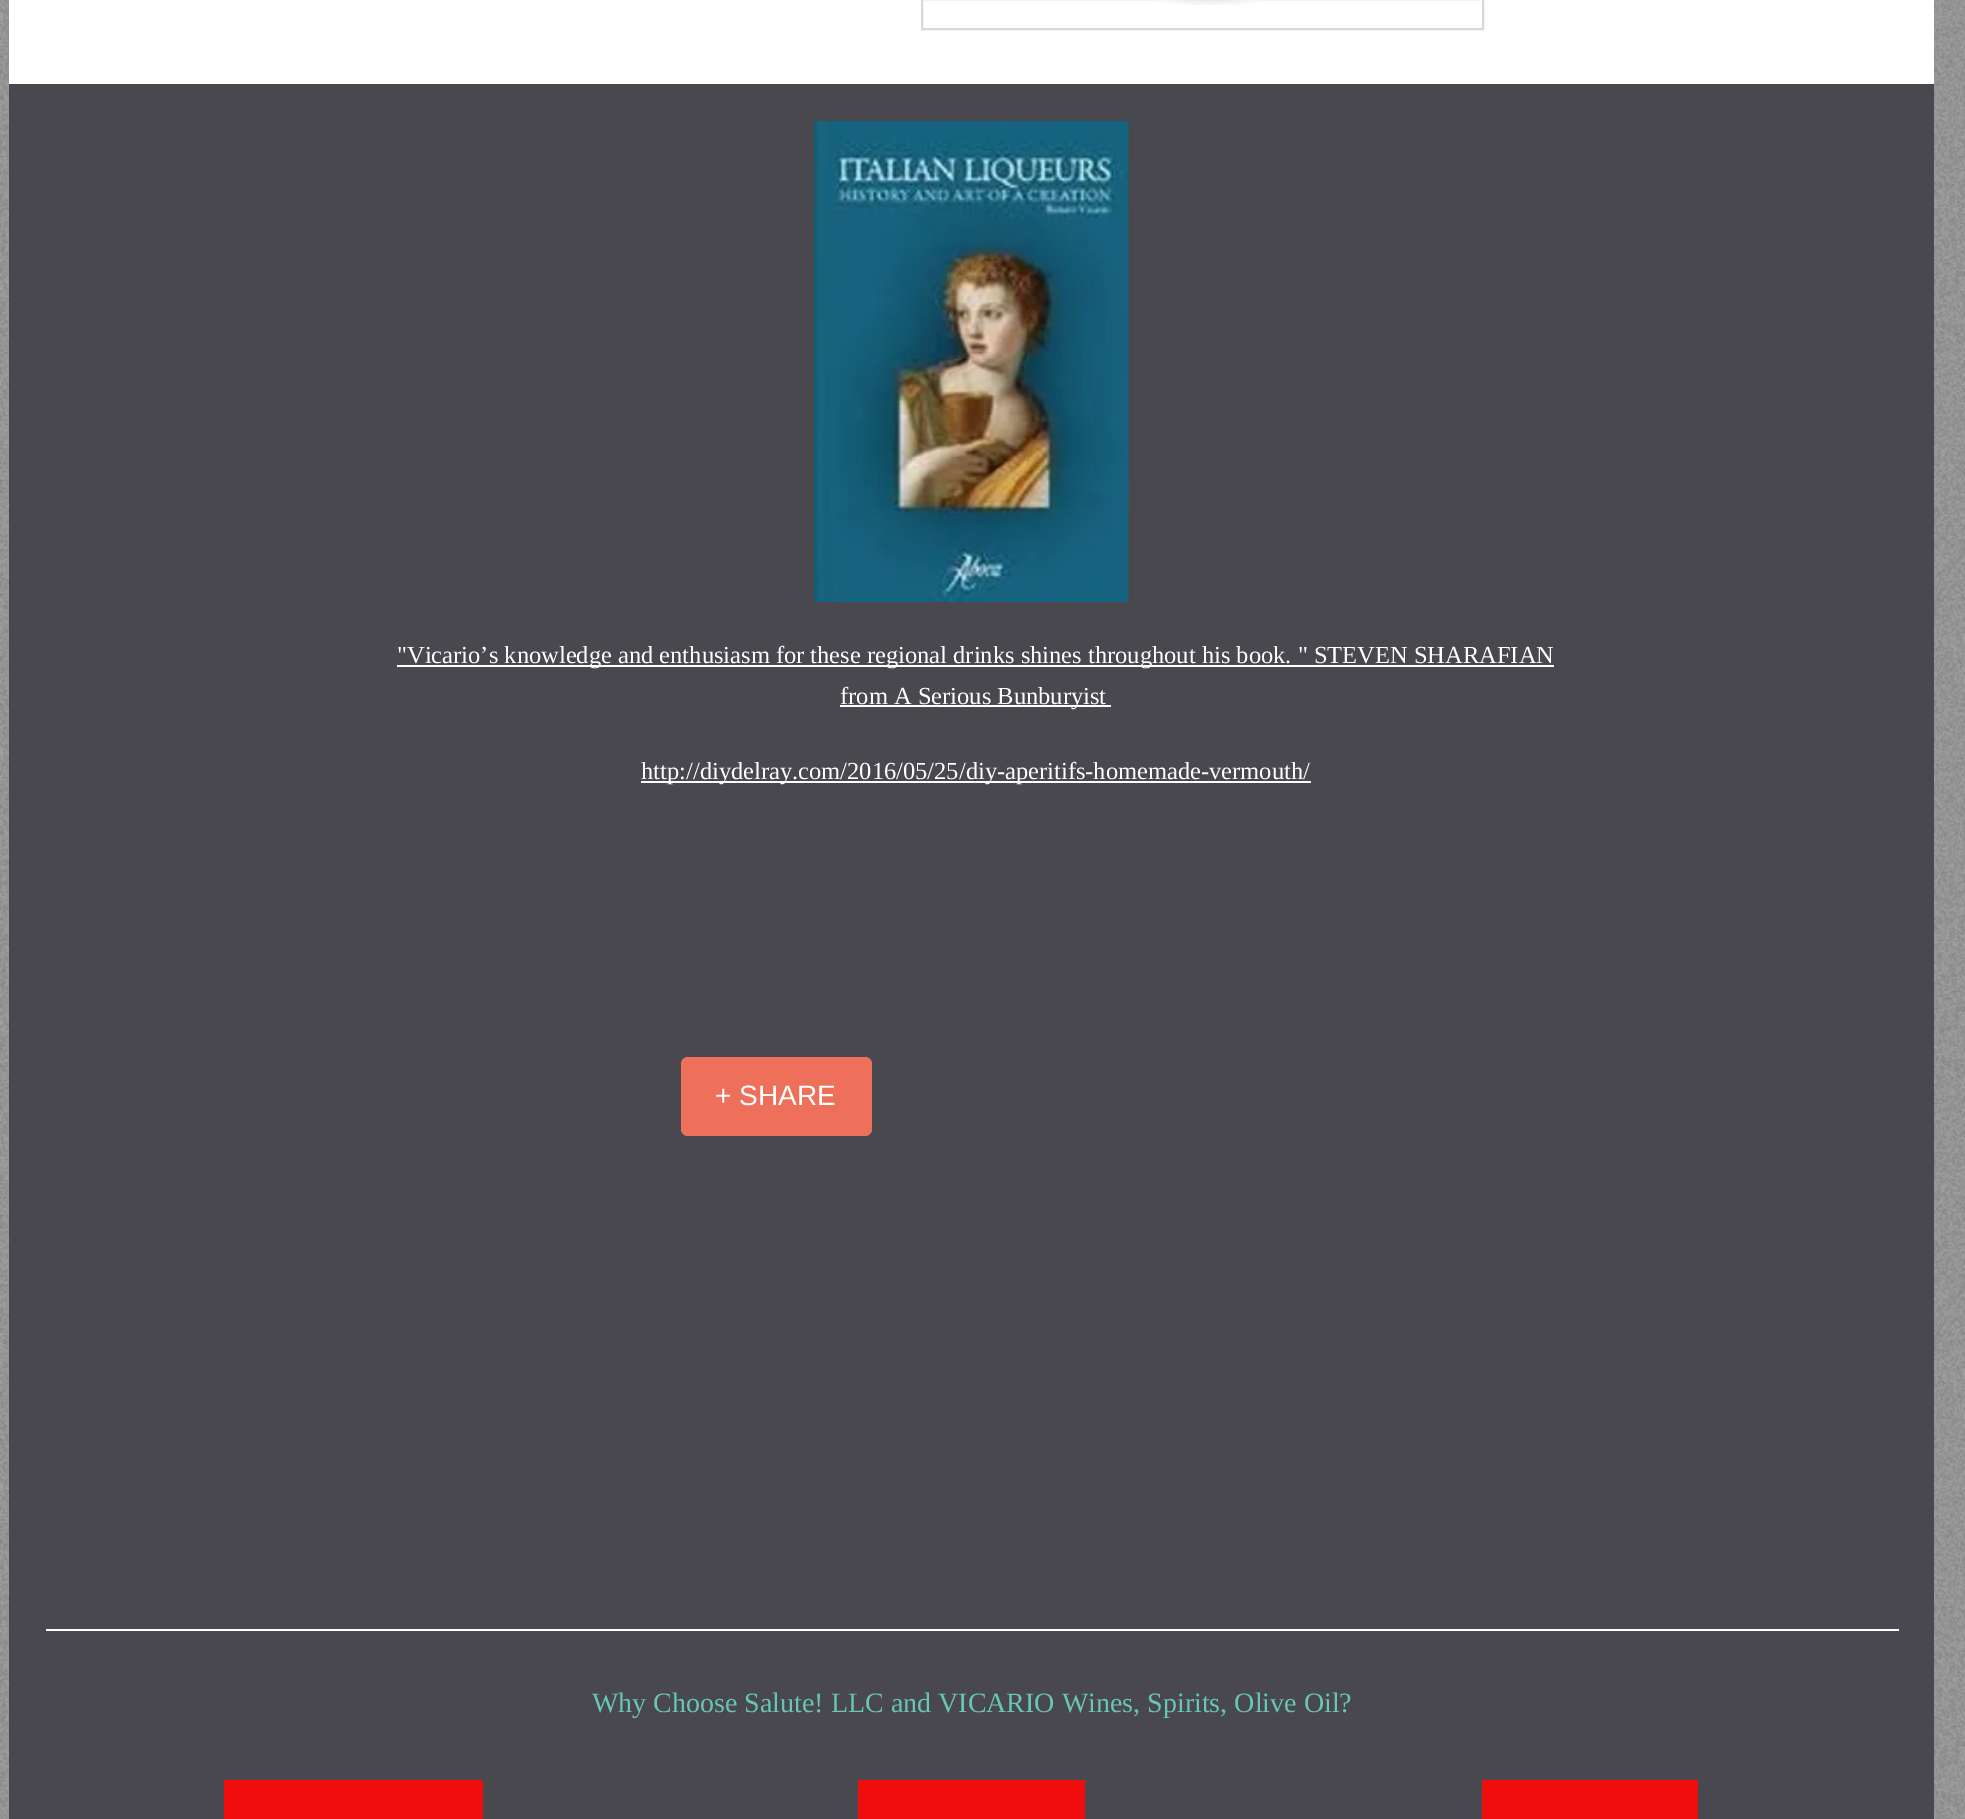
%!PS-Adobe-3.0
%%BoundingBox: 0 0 1965 1819
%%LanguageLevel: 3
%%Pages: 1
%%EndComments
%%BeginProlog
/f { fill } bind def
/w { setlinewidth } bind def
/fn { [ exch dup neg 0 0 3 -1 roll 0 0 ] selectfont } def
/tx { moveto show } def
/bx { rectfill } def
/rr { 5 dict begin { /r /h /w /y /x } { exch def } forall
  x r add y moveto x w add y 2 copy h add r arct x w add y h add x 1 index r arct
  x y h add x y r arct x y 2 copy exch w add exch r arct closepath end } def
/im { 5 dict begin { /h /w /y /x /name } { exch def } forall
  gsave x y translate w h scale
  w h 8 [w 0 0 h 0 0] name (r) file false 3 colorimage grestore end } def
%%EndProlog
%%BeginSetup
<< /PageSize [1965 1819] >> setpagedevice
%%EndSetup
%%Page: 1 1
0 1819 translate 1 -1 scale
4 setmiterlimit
1 setgray
0 0 1965 1819 bx
(image0.raw) 0 0 1965 1819 im
9 0 1925 84 bx
0.851 setgray
2 w
922 -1 561 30 rectstroke
(image1.raw) 1157 0 103 5 im
0.286 0.282 0.306 setrgbcolor
9 84 1925 1735 bx
(image2.raw) 814 121 315 481 im
1 setgray
397 665 1157 2 bx
/LiberationSerif-Regular 24.5 fn
("Vicario’s knowledge and enthusiasm for these regional drinks shines throughout his book. " STEVEN SHARAFIAN) 397 663 tx
840 705 271 2 bx
(from A Serious Bunburyist) 840 704 tx
641 781 670 2 bx
(http://diydelray.com/2016/05/25/diy-aperitifs-homemade-vermouth/) 641 779 tx
0.933 0.439 0.357 setrgbcolor
681 1057 191 79 7 rr f
/LiberationSans-Regular 28 fn
1 setgray
(+ SHARE) 715 1105 tx
46 1629 1853 2 bx
/LiberationSerif-Regular 28 fn
0.408 0.776 0.714 setrgbcolor
(Why Choose Salute! LLC and VICARIO Wines, Spirits, Olive Oil?) 592 1712 tx
0.937 0.051 0.051 setrgbcolor
224 1780 259 39 bx
858 1780 227 39 bx
1482 1780 216 39 bx
showpage
%%EOF
